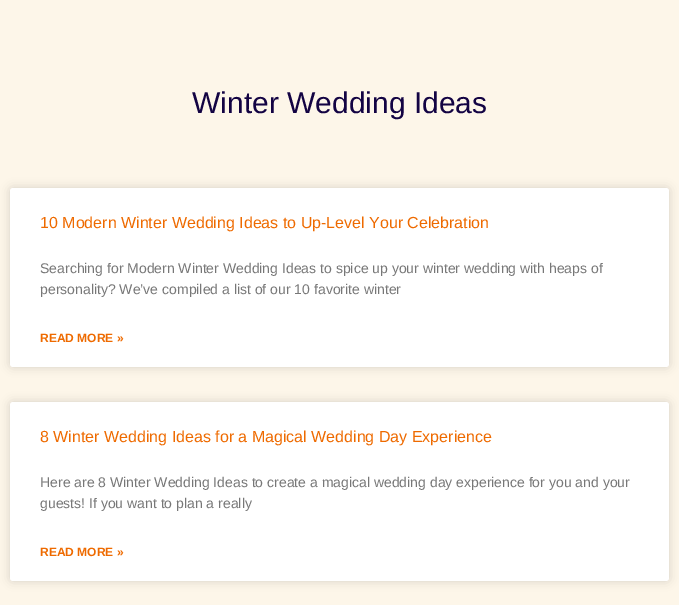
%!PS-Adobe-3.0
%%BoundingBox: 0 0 679 605
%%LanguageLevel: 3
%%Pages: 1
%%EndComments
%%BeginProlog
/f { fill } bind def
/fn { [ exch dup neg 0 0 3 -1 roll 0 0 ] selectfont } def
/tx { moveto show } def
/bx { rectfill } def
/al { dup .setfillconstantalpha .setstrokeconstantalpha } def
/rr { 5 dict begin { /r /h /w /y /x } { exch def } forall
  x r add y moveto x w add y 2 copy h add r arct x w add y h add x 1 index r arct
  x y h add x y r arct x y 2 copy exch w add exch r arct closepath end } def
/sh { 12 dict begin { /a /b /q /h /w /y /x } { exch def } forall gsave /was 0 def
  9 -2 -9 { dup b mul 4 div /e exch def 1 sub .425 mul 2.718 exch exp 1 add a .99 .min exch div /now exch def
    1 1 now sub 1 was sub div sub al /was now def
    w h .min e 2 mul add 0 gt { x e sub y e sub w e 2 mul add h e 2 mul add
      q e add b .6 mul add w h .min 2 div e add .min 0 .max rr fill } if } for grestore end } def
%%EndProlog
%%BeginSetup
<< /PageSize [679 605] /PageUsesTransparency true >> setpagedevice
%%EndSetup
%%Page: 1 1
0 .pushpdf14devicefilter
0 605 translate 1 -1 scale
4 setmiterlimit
0.992 0.965 0.914 setrgbcolor
0 0 679 605 bx
/LiberationSans-Regular 30 fn
0.075 0.012 0.263 setrgbcolor
(Winter Wedding Ideas) 192 113 tx
0 setgray
10 188 659 179 3 5 0.15 sh
1 setgray
10 188 659 179 3 rr f
/LiberationSans-Regular 16 fn
0.933 0.416 0 setrgbcolor
(10 Modern Winter Wedding Ideas to Up-Level Your Celebration) 40 228 tx
/LiberationSans-Regular 14 fn
0.467 setgray
(Searching for Modern Winter Wedding Ideas to spice up your winter wedding with heaps of) 40 273 tx
(personality? We’ve compiled a list of our 10 favorite winter) 40 294 tx
/LiberationSans-Bold 12 fn
0.933 0.416 0 setrgbcolor
(READ MORE ») 40 342 tx
0 setgray
10 402 659 179 3 5 0.15 sh
1 setgray
10 402 659 179 3 rr f
/LiberationSans-Regular 16 fn
0.933 0.416 0 setrgbcolor
(8 Winter Wedding Ideas for a Magical Wedding Day Experience) 40 442 tx
/LiberationSans-Regular 14 fn
0.467 setgray
(Here are 8 Winter Wedding Ideas to create a magical wedding day experience for you and your) 40 487 tx
(guests! If you want to plan a really) 40 508 tx
/LiberationSans-Bold 12 fn
0.933 0.416 0 setrgbcolor
(READ MORE ») 40 556 tx
.poppdf14devicefilter showpage
%%EOF
